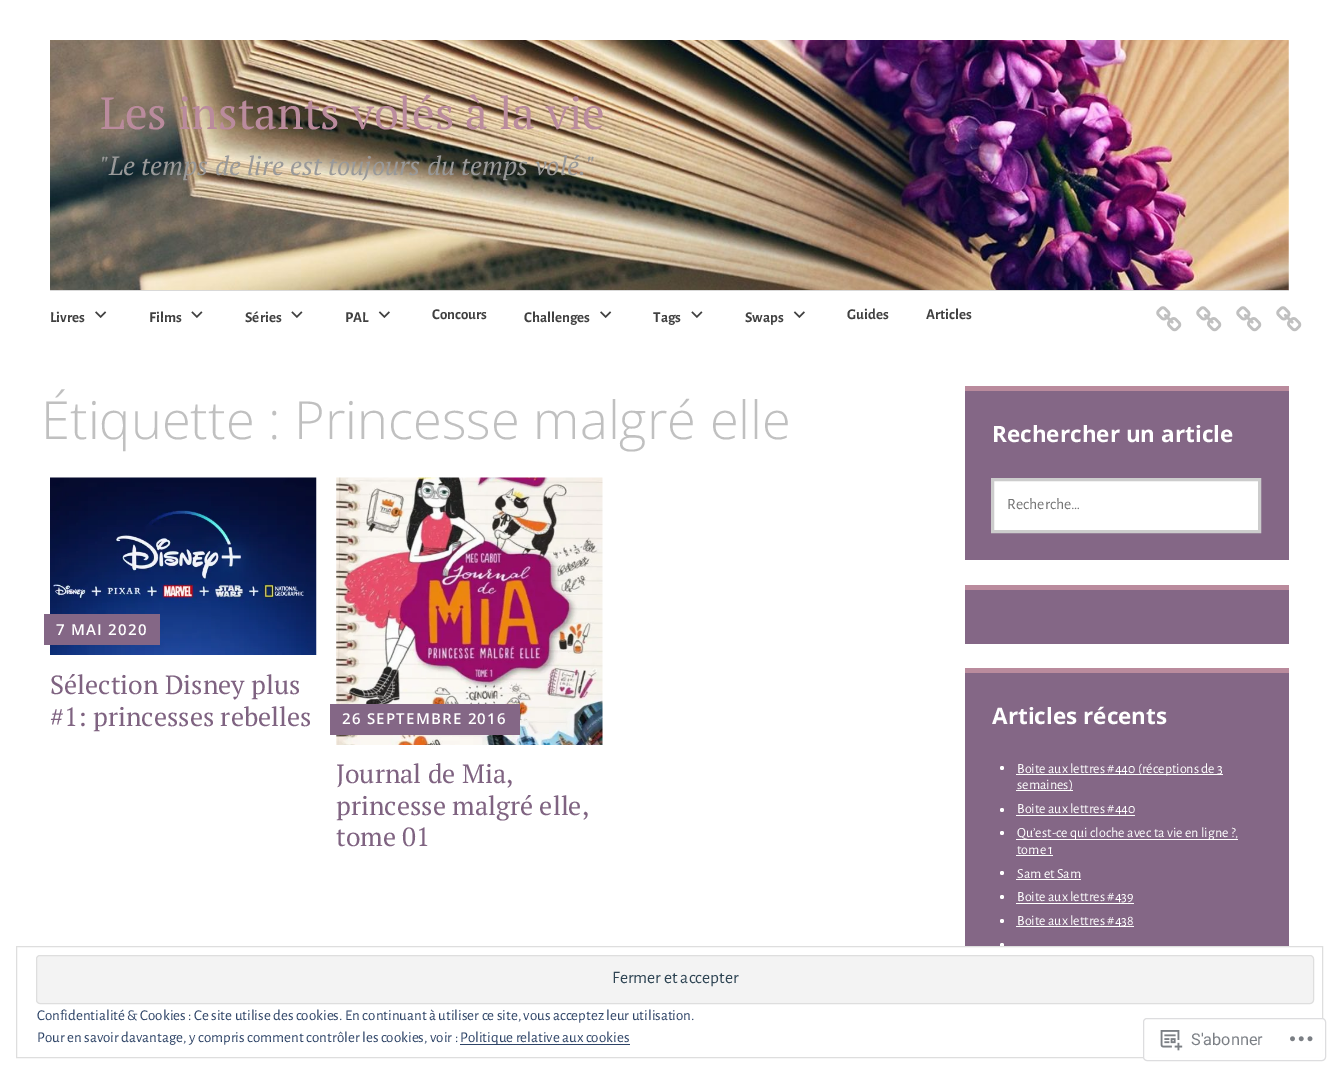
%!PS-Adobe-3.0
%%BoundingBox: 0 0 1338 1073
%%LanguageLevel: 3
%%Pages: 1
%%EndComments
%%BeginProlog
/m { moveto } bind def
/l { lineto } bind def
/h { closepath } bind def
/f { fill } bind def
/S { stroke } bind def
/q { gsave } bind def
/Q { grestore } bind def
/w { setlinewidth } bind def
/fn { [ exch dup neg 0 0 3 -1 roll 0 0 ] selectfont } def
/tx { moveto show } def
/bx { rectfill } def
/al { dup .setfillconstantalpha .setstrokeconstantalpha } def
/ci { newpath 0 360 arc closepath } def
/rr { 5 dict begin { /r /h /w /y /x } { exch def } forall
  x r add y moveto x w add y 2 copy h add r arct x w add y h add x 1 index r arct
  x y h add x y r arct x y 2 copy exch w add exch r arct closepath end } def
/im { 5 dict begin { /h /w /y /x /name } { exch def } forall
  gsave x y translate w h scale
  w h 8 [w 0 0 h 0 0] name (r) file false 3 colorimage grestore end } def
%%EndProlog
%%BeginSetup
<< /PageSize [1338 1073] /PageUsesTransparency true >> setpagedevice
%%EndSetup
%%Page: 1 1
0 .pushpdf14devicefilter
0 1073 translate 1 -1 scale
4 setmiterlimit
1 setgray
0 0 1338 1073 bx
(image0.raw) 50 40 1239 250 im
/PTSerif-Regular 45 fn
0.729 0.545 0.616 setrgbcolor
(Les instants volés à la vie) 100 129 tx
/PTSerif-Italic 26.25 fn
0.6 setgray
("Le temps de lire est toujours du temps volé.") 100 175 tx
0.851 setgray
50 290 1239 1 bx
/AlegreyaSans-Bold 15 fn
0.251 setgray
(Livres) 50 322 tx
(image1.raw) 95 311 12 7 im
(Films) 149 322 tx
(image2.raw) 191 311 12 7 im
(Séries) 245 322 tx
(image2.raw) 291 311 12 7 im
(PAL) 345 322 tx
(image3.raw) 378 311 12 7 im
(Concours) 432 319 tx
(Challenges) 524 322 tx
(image1.raw) 600 311 12 7 im
(Tags) 653 322 tx
(image2.raw) 691 311 12 7 im
(Swaps) 745 322 tx
(image3.raw) 793 311 12 7 im
(Guides) 847 319 tx
(Articles) 926 319 tx
(image4.raw) 1156 306 26 26 im
(image4.raw) 1196 306 26 26 im
(image4.raw) 1236 306 26 26 im
(image4.raw) 1276 306 26 26 im
/OpenSans-Light 52.5 fn
0.753 setgray
(Étiquette : Princesse malgré elle) 41 439 tx
(image5.raw) 50 477 267 178 im
0.518 0.404 0.525 setrgbcolor
44 614 116 31 bx
/OpenSans-SemiBold 15 fn
1 setgray
56 635 m 1.25 0 (7 MAI 2020) ashow
/PTSerif-Regular 26.25 fn
0.498 0.388 0.506 setrgbcolor
(Sélection Disney plus) 50 694 tx
(#1: princesses rebelles) 50 726 tx
(image6.raw) 336 477 267 268 im
0.518 0.404 0.525 setrgbcolor
330 704 190 31 bx
/OpenSans-SemiBold 15 fn
1 setgray
342 724 m 1.25 0 (26 SEPTEMBRE 2016) ashow
/PTSerif-Regular 26.25 fn
0.498 0.388 0.506 setrgbcolor
(Journal de Mia,) 336 783 tx
(princesse malgré elle,) 336 815 tx
(tome 01) 336 846 tx
0.518 0.404 0.525 setrgbcolor
965 391 324 169 bx
0.729 0.545 0.616 setrgbcolor
965 386 324 5 bx
/OpenSans-Bold 22.5 fn
1 setgray
(Rechercher un article) 992 442 tx
992.5 479.5 m 1259.5 479.5 l 1259.5 531.5 l 992.5 531.5 l h q f Q
0.8 setgray
3 w
S
/AlegreyaSans-Regular 15.75 fn
0.459 setgray
(Recherche…) 1007 509 tx
0.518 0.404 0.525 setrgbcolor
965 590 324 54 bx
0.729 0.545 0.616 setrgbcolor
965 585 324 5 bx
0.518 0.404 0.525 setrgbcolor
965 673 324 273 bx
0.729 0.545 0.616 setrgbcolor
965 668 324 5 bx
/OpenSans-Bold 22.5 fn
1 setgray
(Articles récents) 992 724 tx
1002 768 2 ci f
1016 774 207 1 bx
/AlegreyaSans-Regular 14 fn
(Boite aux lettres #440 \(réceptions de 3) 1017 773 tx
1016 790 57 1 bx
(semaines\)) 1017 789 tx
1002 810 2 ci f
(Boite aux lettres #440) 1017 813 tx
1016 815 119 1 bx
1002 833 2 ci f
1016 839 222 1 bx
(Qu’est-ce qui cloche avec ta vie en ligne ?,) 1017 837 tx
(tome 1) 1017 854 tx
1016 855 37 1 bx
1002 873 2 ci f
(Sam et Sam) 1017 878 tx
1016 879 65 1 bx
1002 897 2 ci f
(Boite aux lettres #439) 1017 901 tx
1016 903 118 1 bx
1002 921 2 ci f
1016 926 118 1 bx
(Boite aux lettres #438) 1017 925 tx
1002 945 2 ci f
0.871 setgray
1 w
16.5 946.5 1306 111 rectstroke
0.953 setgray
36.5 955.5 1277 48 3.5 rr q f Q
0.871 setgray
S
/AlegreyaSans-Regular 17.5 fn
0.18 0.267 0.325 setrgbcolor
(Fermer et accepter) 612 983 tx
/AlegreyaSans-Regular 15 fn
0.18 0.267 0.404 setrgbcolor
(Confidentialité & Cookies : Ce site utilise des cookies. En continuant à utiliser ce site, vous acceptez leur utilisation.) 37 1020 tx
(Pour en savoir davantage, y compris comment contrôler les cookies, voir :) 37 1042 tx
460 1044 170 1 bx
(Politique relative aux cookies) 460 1042 tx
0.98 al
1 setgray
1143.5 1018.5 182 42 3.5 rr f
1 al
0.867 0.867 0.875 setrgbcolor
1143.5 1018.5 182 42 3.5 rr S
(image7.raw) 1160 1030 23 21 im
/Roboto-Regular 16.25 fn
0.482 0.498 0.522 setrgbcolor
(S'abonner) 1191 1045 tx
(image8.raw) 1290 1036 23 6 im
.poppdf14devicefilter showpage
%%EOF
